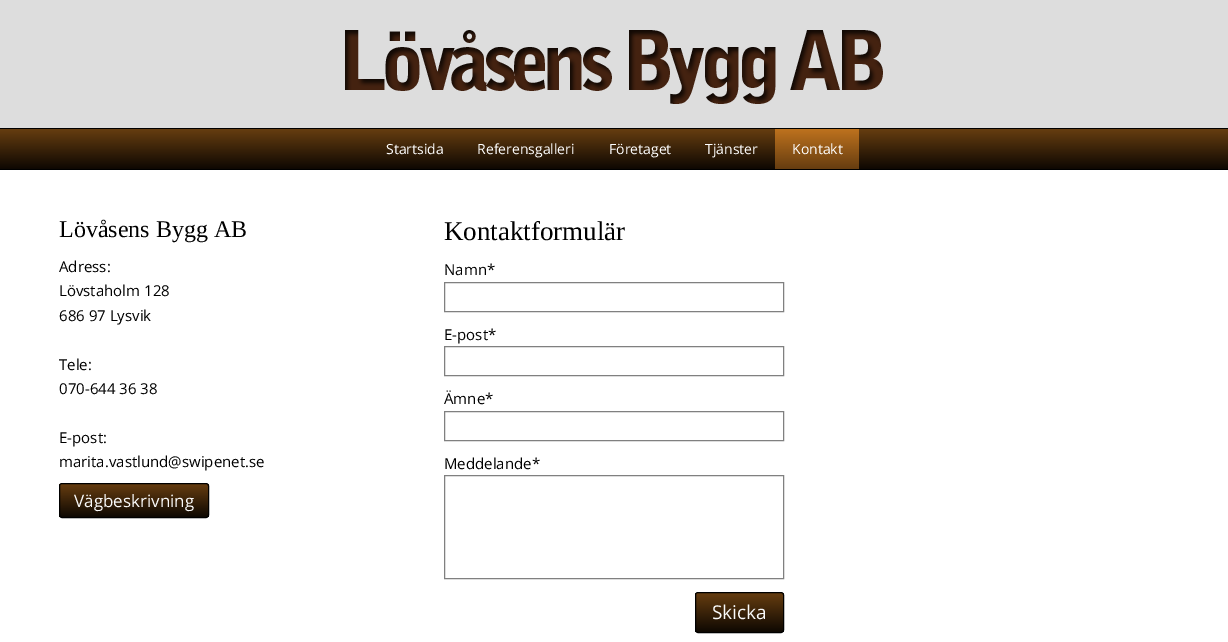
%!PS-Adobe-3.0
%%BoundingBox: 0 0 1228 642
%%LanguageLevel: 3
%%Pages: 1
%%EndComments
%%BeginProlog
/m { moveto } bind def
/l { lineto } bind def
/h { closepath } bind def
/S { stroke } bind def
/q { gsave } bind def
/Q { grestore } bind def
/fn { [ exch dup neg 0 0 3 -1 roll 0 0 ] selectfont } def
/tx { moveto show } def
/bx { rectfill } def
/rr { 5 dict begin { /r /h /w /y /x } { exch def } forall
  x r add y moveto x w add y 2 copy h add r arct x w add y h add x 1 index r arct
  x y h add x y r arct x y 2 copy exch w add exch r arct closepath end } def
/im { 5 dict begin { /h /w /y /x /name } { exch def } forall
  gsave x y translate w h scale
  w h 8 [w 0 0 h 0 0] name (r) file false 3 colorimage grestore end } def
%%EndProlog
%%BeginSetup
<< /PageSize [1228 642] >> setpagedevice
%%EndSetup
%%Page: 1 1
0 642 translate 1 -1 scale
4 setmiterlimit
1 setgray
0 0 1228 642 bx
0.867 setgray
0 0 1228 128 bx
(image0.raw) 345 30 538 74 im
q 0 129 m 1228 129 l 1228 169 l 0 169 l h clip newpath
<< /ShadingType 2 /ColorSpace /DeviceRGB /Coords [0 129 0 169] /Extend [true true] /Function << /FunctionType 2 /Domain [0 1] /C0 [0.4 0.239 0.063] /C1 [0.055 0.031 0.008] /N 1 >> >> shfill Q
0 setgray
0 128 1228 1 bx
0 169 1228 1 bx
/OpenSans-Regular 14 fn
1 setgray
(Startsida) 386 154 tx
(Referensgalleri) 477 154 tx
(Företaget) 609 154 tx
(Tjänster) 705 154 tx
q 775 129 m 859 129 l 859 169 l 775 169 l h clip newpath
<< /ShadingType 2 /ColorSpace /DeviceRGB /Coords [775 129 775 169] /Extend [true true] /Function << /FunctionType 2 /Domain [0 1] /C0 [0.745 0.447 0.118] /C1 [0.4 0.239 0.063] /N 1 >> >> shfill Q
(Kontakt) 792 154 tx
/LiberationSerif-Regular 24 fn
0 setgray
(Lövåsens Bygg AB) 59 237 tx
/OpenSans-Regular 15 fn
(Adress:) 59 272 tx
(Lövstaholm 128) 59 296 tx
(686 97 Lysvik) 59 321 tx
(Tele:) 59 370 tx
(070-644 36 38) 59 394 tx
(E-post:) 59 443 tx
(marita.vastlund@swipenet.se) 59 467 tx
q
59 483 150 35 3 rr clip newpath
q 59 484 m 209 484 l 209 517 l 59 517 l h clip newpath
<< /ShadingType 2 /ColorSpace /DeviceRGB /Coords [60 484 60 517] /Extend [true true] /Function << /FunctionType 2 /Domain [0 1] /C0 [0.4 0.239 0.063] /C1 [0.055 0.031 0.008] /N 1 >> >> shfill Q
Q
59.5 483.5 149 34 2.5 rr S
/OpenSans-Regular 17 fn
0.976 setgray
(Vägbeskrivning) 74 507 tx
/LiberationSerif-Regular 27 fn
0 setgray
(Kontaktformulär) 444 240 tx
/OpenSans-Regular 15 fn
(Namn*) 444 275 tx
0.502 setgray
444.5 282.5 339 29 rectstroke
0 setgray
(E-post*) 444 340 tx
0.502 setgray
444.5 346.5 339 29 rectstroke
0 setgray
(Ämne*) 444 404 tx
0.502 setgray
444.5 411.5 339 29 rectstroke
0 setgray
(Meddelande*) 444 469 tx
0.502 setgray
444.5 475.5 339 103 rectstroke
q
695 592 89 41 3 rr clip newpath
q 695 593 m 784 593 l 784 632 l 695 632 l h clip newpath
<< /ShadingType 2 /ColorSpace /DeviceRGB /Coords [696 593 696 632] /Extend [true true] /Function << /FunctionType 2 /Domain [0 1] /C0 [0.4 0.239 0.063] /C1 [0.055 0.031 0.008] /N 1 >> >> shfill Q
Q
0 setgray
695.5 592.5 88 40 2.5 rr S
/OpenSans-Regular 19 fn
0.976 setgray
(Skicka) 712 619 tx
showpage
%%EOF
